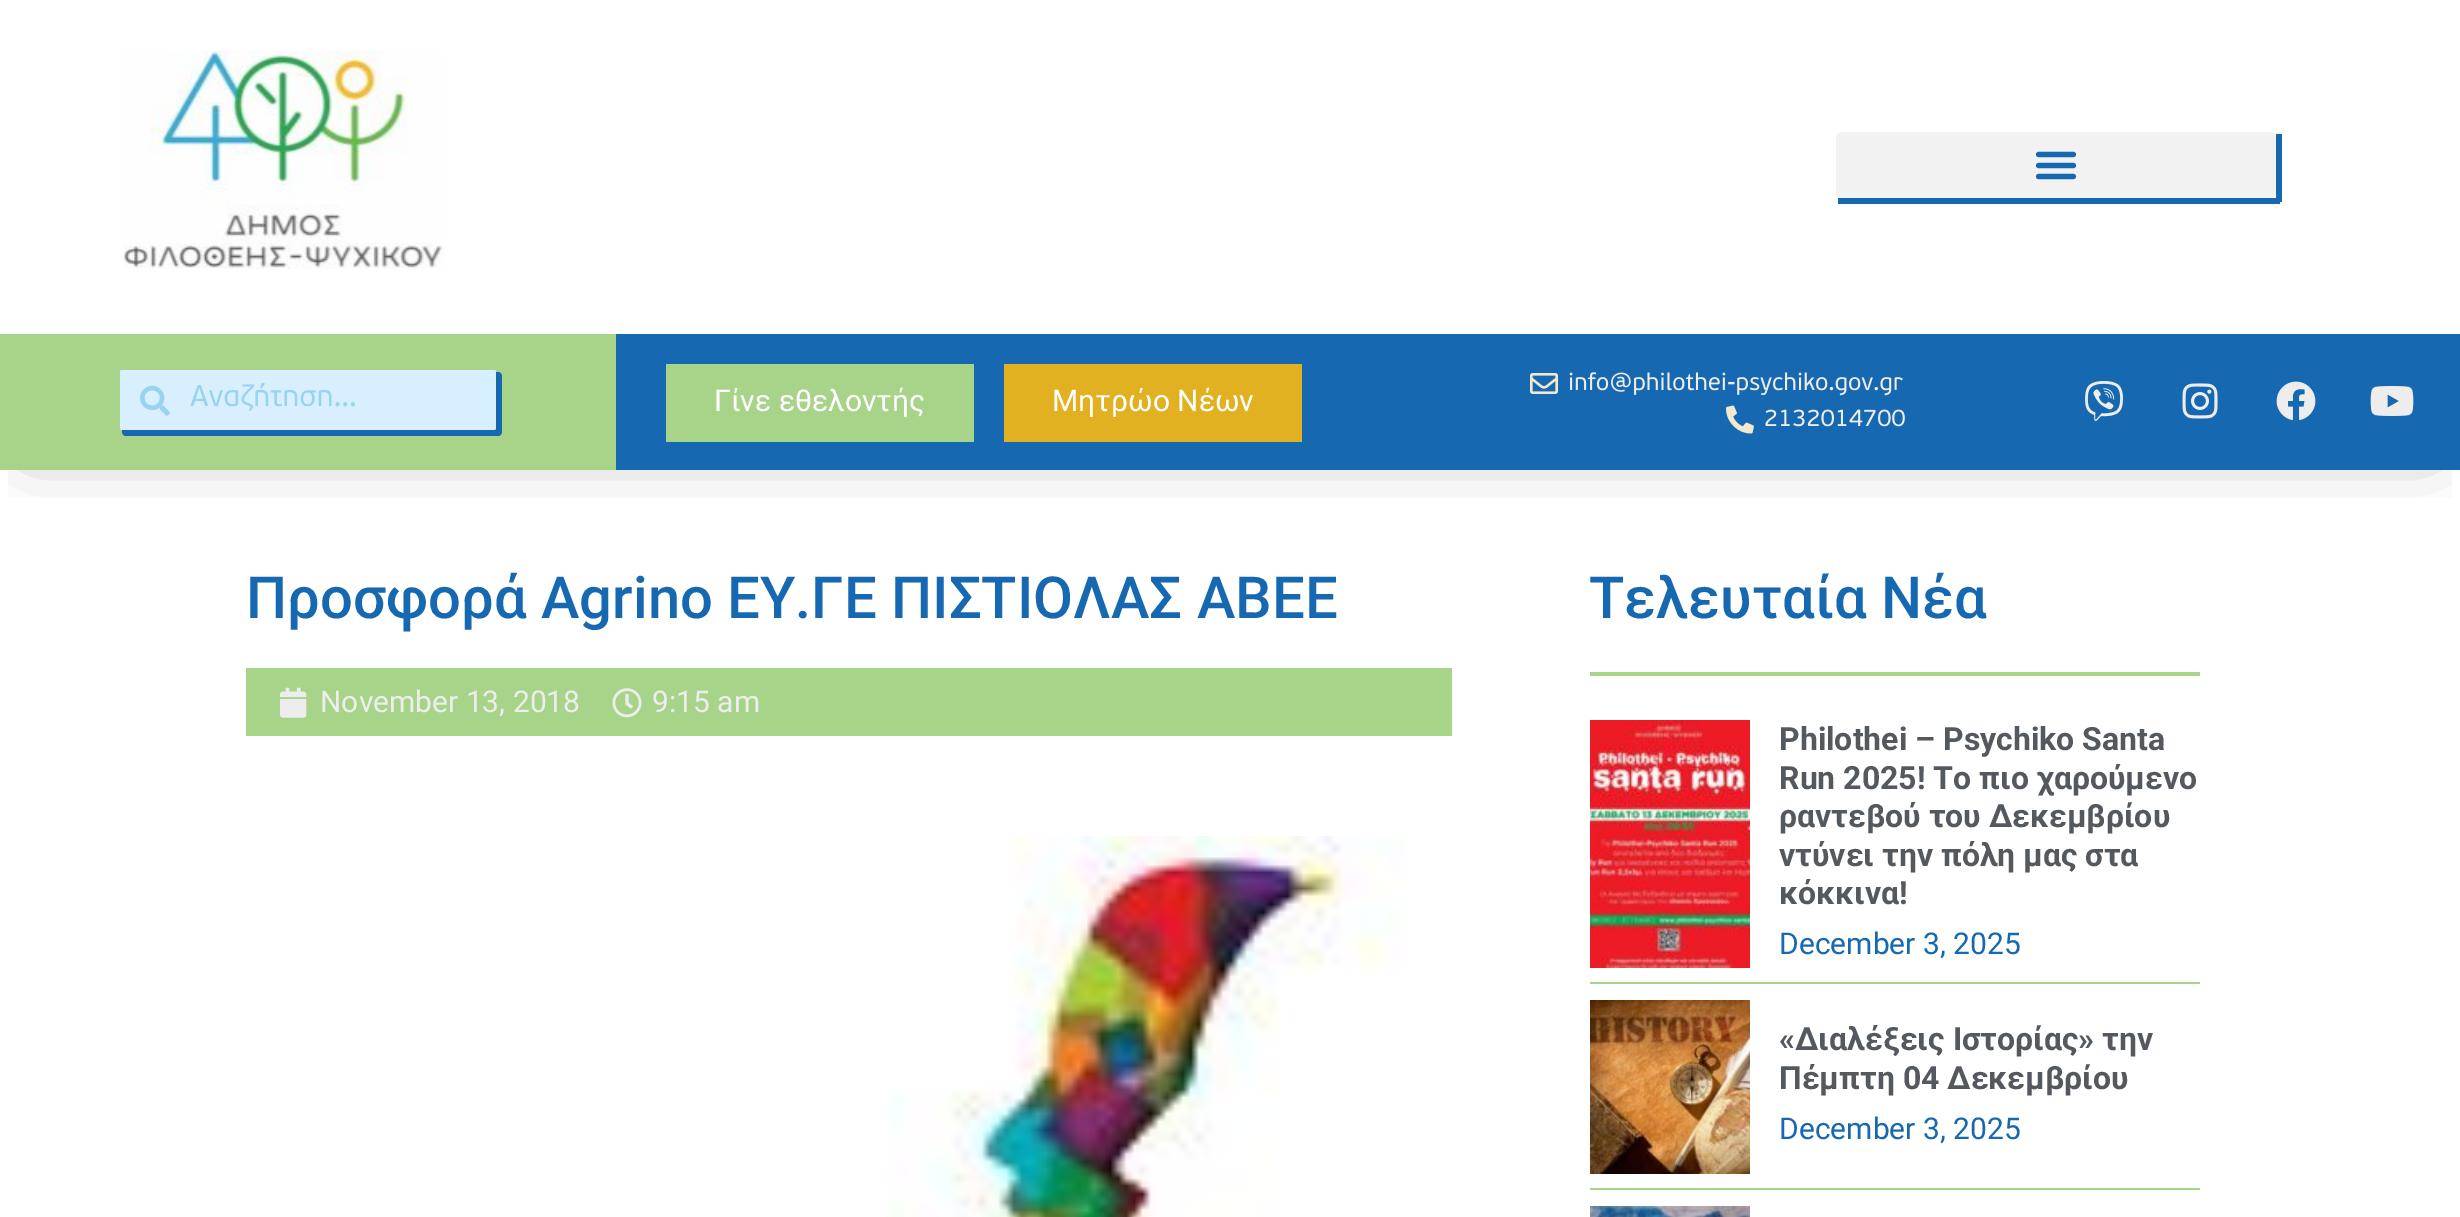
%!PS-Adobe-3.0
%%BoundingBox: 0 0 2460 1217
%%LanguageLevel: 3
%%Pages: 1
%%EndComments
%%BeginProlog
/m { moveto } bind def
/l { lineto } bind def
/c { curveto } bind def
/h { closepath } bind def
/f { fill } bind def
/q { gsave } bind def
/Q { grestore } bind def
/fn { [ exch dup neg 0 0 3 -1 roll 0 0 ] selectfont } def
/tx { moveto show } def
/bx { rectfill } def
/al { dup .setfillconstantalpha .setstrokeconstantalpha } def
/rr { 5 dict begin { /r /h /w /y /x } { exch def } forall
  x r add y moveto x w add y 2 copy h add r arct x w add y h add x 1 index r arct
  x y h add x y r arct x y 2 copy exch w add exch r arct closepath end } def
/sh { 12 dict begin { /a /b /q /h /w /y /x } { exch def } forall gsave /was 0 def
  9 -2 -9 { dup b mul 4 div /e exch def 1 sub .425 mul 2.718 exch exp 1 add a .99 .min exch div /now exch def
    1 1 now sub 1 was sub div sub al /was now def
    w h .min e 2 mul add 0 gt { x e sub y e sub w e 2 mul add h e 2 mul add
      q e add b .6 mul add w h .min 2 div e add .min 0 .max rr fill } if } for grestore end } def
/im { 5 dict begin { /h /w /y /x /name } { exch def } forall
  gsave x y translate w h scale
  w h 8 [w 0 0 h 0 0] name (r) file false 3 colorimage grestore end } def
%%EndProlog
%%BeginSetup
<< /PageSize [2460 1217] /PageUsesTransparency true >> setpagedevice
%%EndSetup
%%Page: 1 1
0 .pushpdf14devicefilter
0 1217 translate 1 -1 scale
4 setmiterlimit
1 setgray
0 0 2460 1217 bx
q
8 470 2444 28 rectclip
0 setgray
32 32 2396 406 0 34 0.5 sh
Q
(image0.raw) 122 50 322 219 im
0.086 0.408 0.694 setrgbcolor
2276 134 6 68 bx
1838 198 442 6 bx
0.949 setgray
1836 132 440 66 6 rr f
(image1.raw) 2035 151 42 29 im
0.086 0.408 0.694 setrgbcolor
616 334 1844 136 bx
0.655 0.831 0.537 setrgbcolor
0 334 616 136 bx
0.086 0.408 0.694 setrgbcolor
122 430 m 122 432 l 122 434 124 436 126 436 c 498 436 l 500 436 502 434 502 432 c 502 376 l 502 374 500 372 498 372 c 496 372 l 496 428 l 496 429 495 430 494 430 c h f
0.847 0.937 1 setrgbcolor
120 370 376 60 2 rr f
(image2.raw) 140 385 30 31 im
(image3.raw) 190 382 165 29 im
0.655 0.831 0.537 setrgbcolor
666 364 308 78 bx
/Roboto-Regular 30 fn
1 setgray
(Γίνε εθελοντής) 714 411 tx
0.886 0.694 0.133 setrgbcolor
1004 364 298 78 bx
1 setgray
(Μητρώο Νέων) 1052 411 tx
(image4.raw) 1530 373 28 21 im
(image5.raw) 1569 372 334 24 im
(image6.raw) 1726 405 28 29 im
(image7.raw) 1765 409 140 18 im
(image8.raw) 2085 381 38 40 im
(image9.raw) 2182 383 36 36 im
(image10.raw) 2276 381 40 40 im
(image11.raw) 2370 386 44 30 im
/Roboto-Medium 58 fn
0.086 0.408 0.694 setrgbcolor
(Προσφορά Agrino ΕΥ.ΓΕ ΠΙΣΤΙΟΛΑΣ ΑΒΕΕ) 246 618 tx
0.655 0.831 0.537 setrgbcolor
246 668 1206 68 bx
(image12.raw) 280 687 27 31 im
/Roboto-Regular 30 fn
0.929 setgray
(November 13, 2018) 320 712 tx
(image13.raw) 612 688 30 30 im
(9:15 am) 652 712 tx
(image14.raw) 886 836 522 381 im
/Roboto-Medium 58 fn
0.086 0.408 0.694 setrgbcolor
(Τελευταία Νέα) 1589 618 tx
0.655 0.831 0.537 setrgbcolor
1590 672 610 4 bx
1590 982 610 2 bx
(image15.raw) 1590 720 160 248 im
/Roboto-Bold 32 fn
0.329 0.349 0.373 setrgbcolor
(Philothei – Psychiko Santa) 1779 750 tx
(Run 2025! Το πιο χαρούμενο) 1779 789 tx
(ραντεβού του Δεκεμβρίου) 1779 827 tx
(ντύνει την πόλη μας στα) 1779 866 tx
(κόκκινα!) 1779 904 tx
/Roboto-Regular 30 fn
0.086 0.408 0.694 setrgbcolor
(December 3, 2025) 1779 954 tx
0.655 0.831 0.537 setrgbcolor
1590 1188 610 2 bx
(image16.raw) 1590 1000 160 174 im
/Roboto-Bold 32 fn
0.329 0.349 0.373 setrgbcolor
(«Διαλέξεις Ιστορίας» την) 1779 1050 tx
(Πέμπτη 04 Δεκεμβρίου) 1779 1089 tx
/Roboto-Regular 30 fn
0.086 0.408 0.694 setrgbcolor
(December 3, 2025) 1779 1139 tx
(image17.raw) 1590 1206 160 11 im
.poppdf14devicefilter showpage
%%EOF
